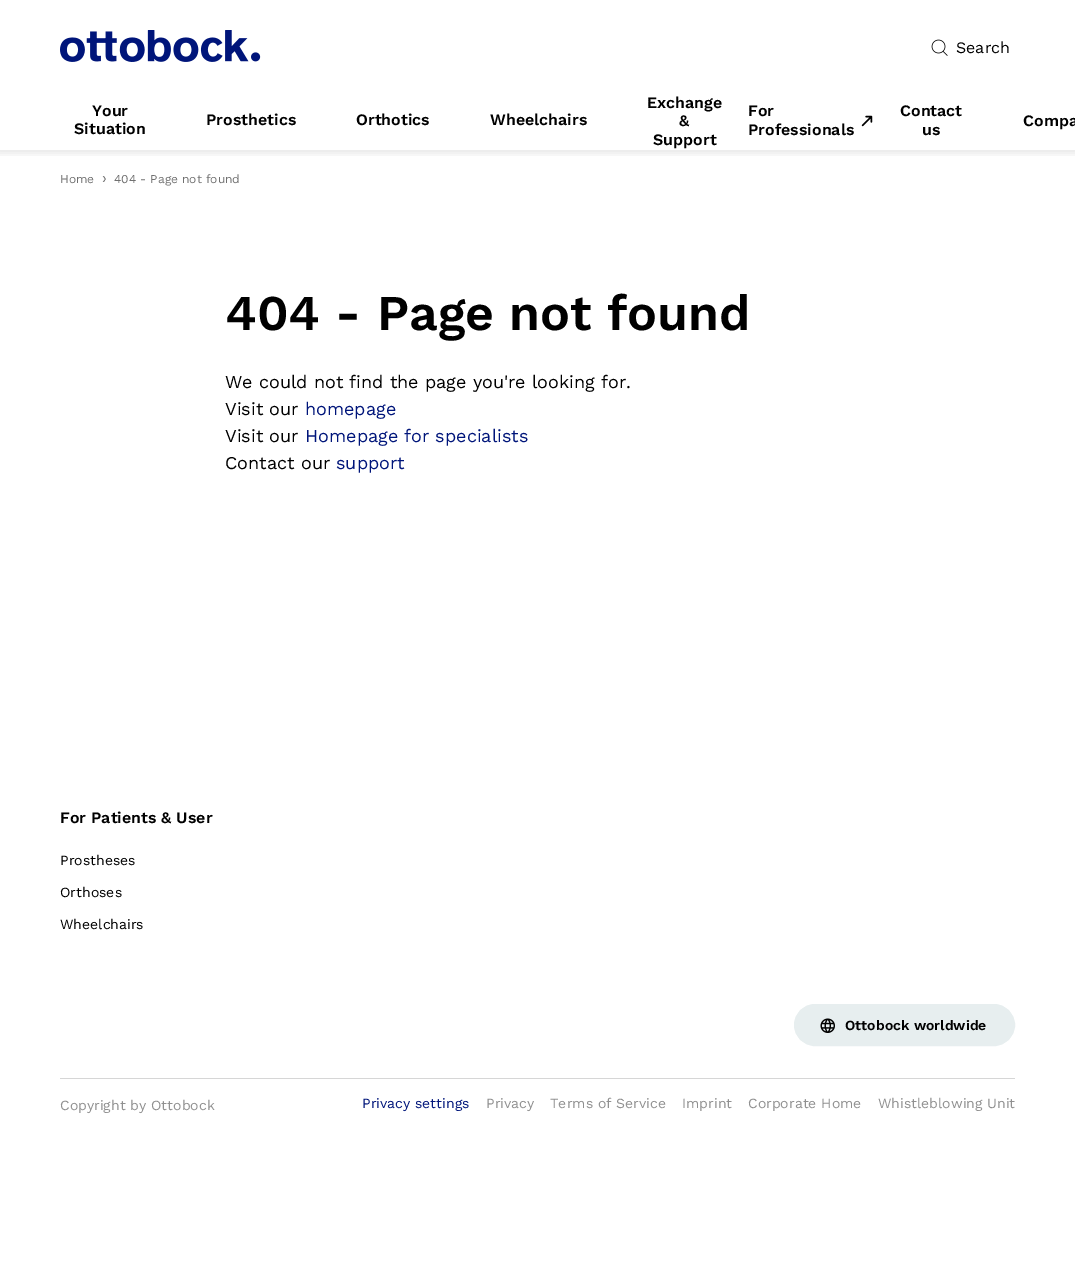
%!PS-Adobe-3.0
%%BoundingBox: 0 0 1075 1277
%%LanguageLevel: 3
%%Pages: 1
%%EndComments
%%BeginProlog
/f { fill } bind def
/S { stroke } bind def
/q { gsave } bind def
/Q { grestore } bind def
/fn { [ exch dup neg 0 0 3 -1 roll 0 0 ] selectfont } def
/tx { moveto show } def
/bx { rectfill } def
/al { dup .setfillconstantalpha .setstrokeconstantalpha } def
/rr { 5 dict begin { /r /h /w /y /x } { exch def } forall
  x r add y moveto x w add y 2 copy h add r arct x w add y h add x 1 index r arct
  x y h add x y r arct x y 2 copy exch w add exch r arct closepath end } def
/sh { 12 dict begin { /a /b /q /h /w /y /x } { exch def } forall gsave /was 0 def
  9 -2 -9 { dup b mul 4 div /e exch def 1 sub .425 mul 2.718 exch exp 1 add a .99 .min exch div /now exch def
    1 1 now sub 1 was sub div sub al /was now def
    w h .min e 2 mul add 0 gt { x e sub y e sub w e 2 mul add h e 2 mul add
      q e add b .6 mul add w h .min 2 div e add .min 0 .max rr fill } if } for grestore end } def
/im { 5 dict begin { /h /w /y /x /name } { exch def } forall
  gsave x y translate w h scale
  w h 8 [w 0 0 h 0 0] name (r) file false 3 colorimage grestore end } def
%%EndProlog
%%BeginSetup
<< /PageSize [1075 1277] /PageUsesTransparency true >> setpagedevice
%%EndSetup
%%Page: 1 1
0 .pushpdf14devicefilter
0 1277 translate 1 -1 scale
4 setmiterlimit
1 setgray
0 0 1075 1277 bx
q
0 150 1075 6 rectclip
0 setgray
-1 1 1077 152 0 4 0.1 sh
Q
(image0.raw) 60 30 201 32 im
(image1.raw) 931 39 17 17 im
/WorkSans-Regular 16 fn
0 setgray
(Search) 956 53 tx
/WorkSans-SemiBold 16 fn
(Your) 92 116 tx
(Situation) 74 134 tx
(Prosthetics) 206 125 tx
(Orthotics) 356 125 tx
(Wheelchairs) 490 125 tx
(Exchange) 647 108 tx
(&) 679 126 tx
(Support) 653 145 tx
(For) 748 116 tx
(Professionals) 748 135 tx
(image2.raw) 861 115 12 12 im
(Contact) 900 116 tx
(us) 922 135 tx
(Compa) 1023 126 tx
/WorkSans-Regular 12 fn
0.439 setgray
(Home) 60 183 tx
/WorkSans-Regular 15 fn
(›) 102 183 tx
/WorkSans-Regular 12 fn
(404 - Page not found) 114 183 tx
/WorkSans-SemiBold 50 fn
0 setgray
(404 - Page not found) 225 330 tx
/WorkSans-Regular 18 fn
(We could not find the page you're looking for.) 225 388 tx
(Visit our) 225 415 tx
0 0.082 0.478 setrgbcolor
(homepage) 305 415 tx
0 setgray
(Visit our) 225 442 tx
0 0.082 0.478 setrgbcolor
(Homepage for specialists) 305 442 tx
0 setgray
(Contact our) 225 469 tx
0 0.082 0.478 setrgbcolor
(support) 336 469 tx
/WorkSans-SemiBold 16 fn
0 setgray
(For Patients & User) 60 823 tx
/WorkSans-Regular 14 fn
(Prostheses) 60 865 tx
(Orthoses) 60 897 tx
(Wheelchairs) 60 929 tx
0.906 0.933 0.937 setrgbcolor
794.5 1004.5 220 41 20.5 rr q f Q
S
(image3.raw) 820 1018 15 15 im
/WorkSans-SemiBold 14 fn
0 setgray
(Ottobock worldwide) 845 1030 tx
0.839 setgray
60 1078 955 1 bx
/WorkSans-Regular 14 fn
0.565 setgray
(Copyright by Ottobock) 60 1110 tx
0 0.082 0.478 setrgbcolor
(Privacy settings) 362 1108 tx
0.565 setgray
(Privacy) 486 1108 tx
(Terms of Service) 550 1108 tx
(Imprint) 682 1108 tx
(Corporate Home) 748 1108 tx
(Whistleblowing Unit) 878 1108 tx
.poppdf14devicefilter showpage
%%EOF
